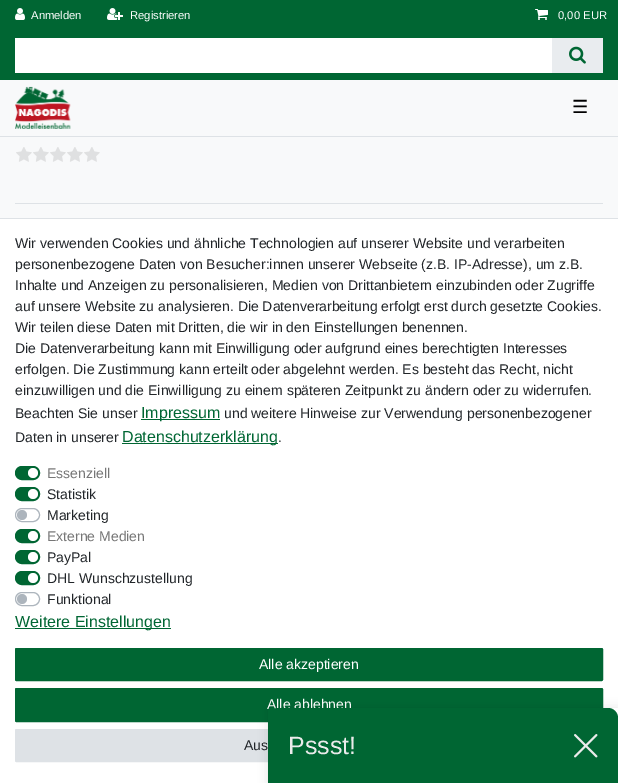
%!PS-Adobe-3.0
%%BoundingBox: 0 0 618 783
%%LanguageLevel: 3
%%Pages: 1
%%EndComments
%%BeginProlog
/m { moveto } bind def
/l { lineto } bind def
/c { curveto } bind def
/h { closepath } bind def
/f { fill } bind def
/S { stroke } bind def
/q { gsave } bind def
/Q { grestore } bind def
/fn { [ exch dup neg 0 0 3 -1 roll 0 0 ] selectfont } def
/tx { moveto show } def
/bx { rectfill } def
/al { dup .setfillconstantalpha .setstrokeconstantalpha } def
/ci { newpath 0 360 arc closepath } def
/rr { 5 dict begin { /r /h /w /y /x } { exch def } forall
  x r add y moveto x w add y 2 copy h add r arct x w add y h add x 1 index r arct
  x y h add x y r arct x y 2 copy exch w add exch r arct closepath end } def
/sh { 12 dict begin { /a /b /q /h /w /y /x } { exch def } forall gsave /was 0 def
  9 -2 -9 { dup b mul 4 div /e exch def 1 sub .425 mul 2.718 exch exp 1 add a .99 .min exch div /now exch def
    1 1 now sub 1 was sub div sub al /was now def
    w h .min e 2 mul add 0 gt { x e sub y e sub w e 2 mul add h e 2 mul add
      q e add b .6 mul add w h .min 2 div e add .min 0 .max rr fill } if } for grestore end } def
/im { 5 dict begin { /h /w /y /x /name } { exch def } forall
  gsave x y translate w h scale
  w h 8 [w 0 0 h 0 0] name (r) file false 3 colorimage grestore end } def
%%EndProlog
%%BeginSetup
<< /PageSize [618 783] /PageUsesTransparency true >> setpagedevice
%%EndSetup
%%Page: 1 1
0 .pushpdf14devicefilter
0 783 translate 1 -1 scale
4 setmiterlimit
0.973 0.976 0.98 setrgbcolor
0 0 618 783 bx
0 0.4 0.2 setrgbcolor
0 0 618 80 bx
(image0.raw) 15 8 10 12 im
/LiberationSans-Regular 11.25 fn
1 setgray
(Anmelden) 31 19 tx
(image1.raw) 107 8 16 12 im
(Registrieren) 130 19 tx
(image2.raw) 535 9 13 11 im
(0,00 EUR) 558 19 tx
15 38 537 35 bx
0.914 0.925 0.937 setrgbcolor
552 38 51 35 bx
(image3.raw) 569 46 17 18 im
0.871 0.886 0.902 setrgbcolor
0 136 618 1 bx
(image4.raw) 15 86 56 43 im
/DejaVuSans-Regular 18 fn
0 setgray
(☰) 572 113 tx
(image5.raw) 16 147 16 15 im
(image5.raw) 33 147 16 15 im
(image5.raw) 50 147 16 15 im
(image5.raw) 67 147 16 15 im
(image5.raw) 84 147 16 15 im
0.871 0.886 0.902 setrgbcolor
15 203 588 1 bx
1 setgray
0 219 618 564 bx
0.871 0.886 0.902 setrgbcolor
0 218 618 1 bx
/LiberationSans-Regular 14 fn
0.129 0.145 0.161 setrgbcolor
(Wir verwenden Cookies und ähnliche Technologien auf unserer Website und verarbeiten) 15 248 tx
(personenbezogene Daten von Besucher:innen unserer Webseite \(z.B. IP-Adresse\), um z.B.) 15 269 tx
(Inhalte und Anzeigen zu personalisieren, Medien von Drittanbietern einzubinden oder Zugriffe) 15 290 tx
(auf unsere Website zu analysieren. Die Datenverarbeitung erfolgt erst durch gesetzte Cookies.) 15 311 tx
(Wir teilen diese Daten mit Dritten, die wir in den Einstellungen benennen.) 15 332 tx
(Die Datenverarbeitung kann mit Einwilligung oder aufgrund eines berechtigten Interesses) 15 353 tx
(erfolgen. Die Zustimmung kann erteilt oder abgelehnt werden. Es besteht das Recht, nicht) 15 374 tx
(einzuwilligen und die Einwilligung zu einem späteren Zeitpunkt zu ändern oder zu widerrufen.) 15 395 tx
(Beachten Sie unser) 15 418 tx
0 0.4 0.2 setrgbcolor
141 419 79 1 bx
/LiberationSans-Regular 16 fn
(Impressum) 141 418 tx
/LiberationSans-Regular 14 fn
0.129 0.145 0.161 setrgbcolor
(und weitere Hinweise zur Verwendung personenbezogener) 224 418 tx
(Daten in unserer) 15 442 tx
0 0.4 0.2 setrgbcolor
122 443 156 1 bx
/LiberationSans-Regular 16 fn
(Datenschutzerklärung) 122 442 tx
/LiberationSans-Regular 14 fn
0.129 0.145 0.161 setrgbcolor
(.) 278 442 tx
0 0.4 0.2 setrgbcolor
15.5 466.5 24 13 6.5 rr q f Q
S
0.463 setgray
(Essenziell) 47 478 tx
1 setgray
33 473 5 ci f
0 0.4 0.2 setrgbcolor
15.5 487.5 24 13 6.5 rr q f Q
S
0.129 0.145 0.161 setrgbcolor
(Statistik) 47 499 tx
1 setgray
33 494 5 ci f
0.678 0.71 0.741 setrgbcolor
15.5 508.5 24 13 6.5 rr S
0.129 0.145 0.161 setrgbcolor
(Marketing) 47 520 tx
0.678 0.71 0.741 setrgbcolor
22 515 5 ci f
0 0.4 0.2 setrgbcolor
15.5 529.5 24 13 6.5 rr q f Q
S
0.463 setgray
(Externe Medien) 47 541 tx
1 setgray
33 536 5 ci f
0 0.4 0.2 setrgbcolor
15.5 550.5 24 13 6.5 rr q f Q
S
0.129 0.145 0.161 setrgbcolor
(PayPal) 47 562 tx
1 setgray
33 557 5 ci f
0 0.4 0.2 setrgbcolor
15.5 571.5 24 13 6.5 rr q f Q
S
0.129 0.145 0.161 setrgbcolor
(DHL Wunschzustellung) 47 583 tx
1 setgray
33 578 5 ci f
0.678 0.71 0.741 setrgbcolor
15.5 592.5 24 13 6.5 rr S
0.129 0.145 0.161 setrgbcolor
(Funktional) 47 604 tx
0.678 0.71 0.741 setrgbcolor
22 599 5 ci f
0 0.4 0.2 setrgbcolor
15 628 156 1 bx
/LiberationSans-Regular 16 fn
(Weitere Einstellungen) 15 627 tx
15.5 648.5 587 32 1 rr q f Q
S
/LiberationSans-Regular 14 fn
1 setgray
(Alle akzeptieren) 259 669 tx
0 0.4 0.2 setrgbcolor
15.5 688.5 587 33 1 rr q f Q
S
1 setgray
(Alle ablehnen) 267 709 tx
0.871 0.886 0.902 setrgbcolor
15.5 729.5 587 32 1 rr q f Q
S
0.129 0.145 0.161 setrgbcolor
(Aus) 244 750 tx
q
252 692 m 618 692 l 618 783 l 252 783 l h 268 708 m 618 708 l 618 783 l 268 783 l h eoclip newpath
0 setgray
268 708 350 75 0 5 0.1 sh
Q
0 0.4 0.2 setrgbcolor
278 708 m 608 708 l 613.5 708 618 712.5 618 718 c 618 783 l 268 783 l 268 718 l 268 712.5 272.5 708 278 708 c h f
/LiberationSans-Regular 25 fn
0.922 setgray
(Pssst!) 288 754 tx
(image6.raw) 574 734 24 24 im
.poppdf14devicefilter showpage
%%EOF
